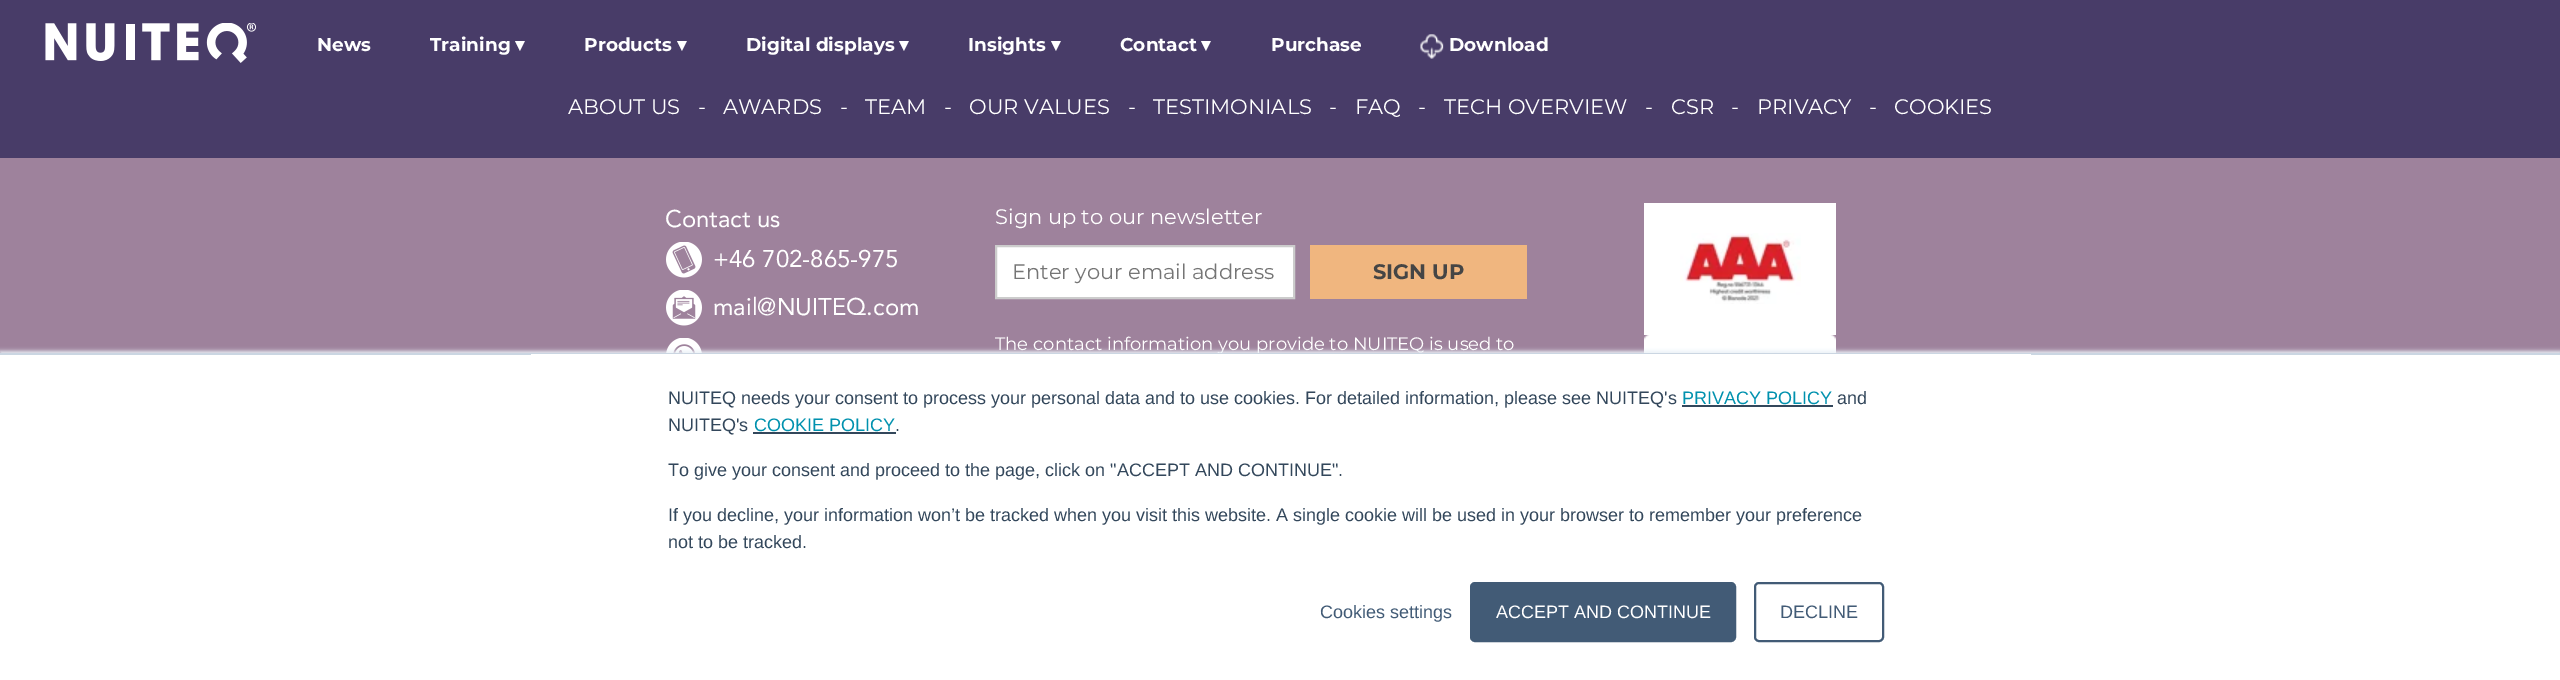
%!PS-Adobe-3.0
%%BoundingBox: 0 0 2560 680
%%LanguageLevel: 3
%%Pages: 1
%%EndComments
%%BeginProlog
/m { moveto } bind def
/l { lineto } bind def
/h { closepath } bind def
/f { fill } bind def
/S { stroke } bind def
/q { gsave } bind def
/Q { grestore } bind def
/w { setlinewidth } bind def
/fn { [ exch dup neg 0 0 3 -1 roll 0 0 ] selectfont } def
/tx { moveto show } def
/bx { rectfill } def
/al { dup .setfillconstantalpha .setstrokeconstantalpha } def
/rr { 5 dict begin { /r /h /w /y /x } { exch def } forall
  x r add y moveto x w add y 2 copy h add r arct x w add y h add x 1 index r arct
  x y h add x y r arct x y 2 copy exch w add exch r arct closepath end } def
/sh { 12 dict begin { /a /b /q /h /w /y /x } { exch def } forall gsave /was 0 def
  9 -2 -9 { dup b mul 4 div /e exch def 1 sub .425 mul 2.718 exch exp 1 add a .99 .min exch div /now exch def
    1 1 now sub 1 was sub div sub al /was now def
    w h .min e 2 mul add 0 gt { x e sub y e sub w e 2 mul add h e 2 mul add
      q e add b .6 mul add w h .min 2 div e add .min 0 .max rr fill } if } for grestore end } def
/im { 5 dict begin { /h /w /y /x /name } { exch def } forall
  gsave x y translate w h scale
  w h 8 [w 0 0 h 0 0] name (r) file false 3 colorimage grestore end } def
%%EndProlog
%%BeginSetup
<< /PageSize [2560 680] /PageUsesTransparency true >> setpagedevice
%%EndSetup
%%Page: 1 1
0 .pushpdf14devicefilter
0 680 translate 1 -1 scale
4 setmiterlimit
0.282 0.235 0.408 setrgbcolor
0 0 2560 680 bx
(image0.raw) 45 23 211 40 im
/Montserrat-Bold 18.5 fn
1 setgray
(News) 317 51 tx
(Training) 430 51 tx
/DejaVuSans-Bold 18.5 fn
(▾) 515 51 tx
/Montserrat-Bold 18.5 fn
(Products) 584 51 tx
/DejaVuSans-Bold 18.5 fn
(▾) 677 51 tx
/Montserrat-Bold 18.5 fn
(Digital displays) 746 51 tx
/DejaVuSans-Bold 18.5 fn
(▾) 899 51 tx
/Montserrat-Bold 18.5 fn
(Insights) 968 51 tx
/DejaVuSans-Bold 18.5 fn
(▾) 1051 51 tx
/Montserrat-Bold 18.5 fn
(Contact) 1120 51 tx
/DejaVuSans-Bold 18.5 fn
(▾) 1201 51 tx
/Montserrat-Bold 18.5 fn
(Purchase) 1271 51 tx
(image1.raw) 1420 34 24 25 im
(Download) 1449 51 tx
/Montserrat-Thin 21 fn
(ABOUT US) 568 114 tx
(-) 698 114 tx
(AWARDS) 723 114 tx
(-) 840 114 tx
(TEAM) 865 114 tx
(-) 944 114 tx
(OUR VALUES) 969 114 tx
(-) 1128 114 tx
(TESTIMONIALS) 1153 114 tx
(-) 1329 114 tx
(FAQ) 1355 114 tx
(-) 1418 114 tx
(TECH OVERVIEW) 1444 114 tx
(-) 1645 114 tx
(CSR) 1671 114 tx
(-) 1731 114 tx
(PRIVACY) 1757 114 tx
(-) 1869 114 tx
(COOKIES) 1894 114 tx
0.62 0.51 0.612 setrgbcolor
0 158 2560 195 bx
/Avenir-Regular 24 fn
1 setgray
(Contact us) 665 227 tx
(image2.raw) 666 242 36 36 im
(+46 702-865-975) 713 267 tx
(image3.raw) 666 290 36 36 im
(mail@NUITEQ.com) 713 315 tx
(image4.raw) 666 338 36 15 im
/Montserrat-Thin 21 fn
(Sign up to our newsletter) 995 224 tx
996 246 m 1294 246 l 1294 298 l 996 298 l h q f Q
0.8 setgray
2 w
S
0.459 setgray
(Enter your email address) 1012 279 tx
0.941 0.714 0.498 setrgbcolor
1310 245 217 54 bx
/Montserrat-Bold 21 fn
0.271 setgray
(SIGN UP) 1373 279 tx
/Montserrat-Thin 18 fn
1 setgray
(The contact information you provide to NUITEQ is used to) 995 350 tx
1644 203 192 132 bx
(image5.raw) 1680 233 121 71 im
(image6.raw) 1644 335 192 18 im
0.918 0.941 0.965 setrgbcolor
0 351 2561 329 0 2 1 sh
1 setgray
0 355 2560 325 bx
0.796 0.839 0.886 setrgbcolor
0 353 2560 2 bx
1 setgray
531 354 1500 1 bx
/LiberationSans-Regular 18 fn
0.2 0.278 0.357 setrgbcolor
(NUITEQ needs your consent to process your personal data and to use cookies. For detailed information, please see NUITEQ's) 668 404 tx
0 0.569 0.682 setrgbcolor
(PRIVACY POLICY) 1682 404 tx
0.2 0.278 0.357 setrgbcolor
1682 405 151 2 bx
(and) 1837 404 tx
(NUITEQ's) 668 431 tx
0 0.569 0.682 setrgbcolor
(COOKIE POLICY) 754 431 tx
0.2 0.278 0.357 setrgbcolor
753 432 143 2 bx
(.) 895 431 tx
(To give your consent and proceed to the page, click on "ACCEPT AND CONTINUE".) 668 476 tx
(If you decline, your information won’t be tracked when you visit this website. A single cookie will be used in your browser to remember your preference) 668 521 tx
(not to be tracked.) 668 548 tx
0.259 0.357 0.463 setrgbcolor
(Cookies settings) 1320 618 tx
1471 583 264 58 4 rr q f Q
S
1 setgray
(ACCEPT AND CONTINUE) 1496 618 tx
0.259 0.357 0.463 setrgbcolor
1755 583 128 58 4 rr S
(DECLINE) 1780 618 tx
.poppdf14devicefilter showpage
%%EOF
